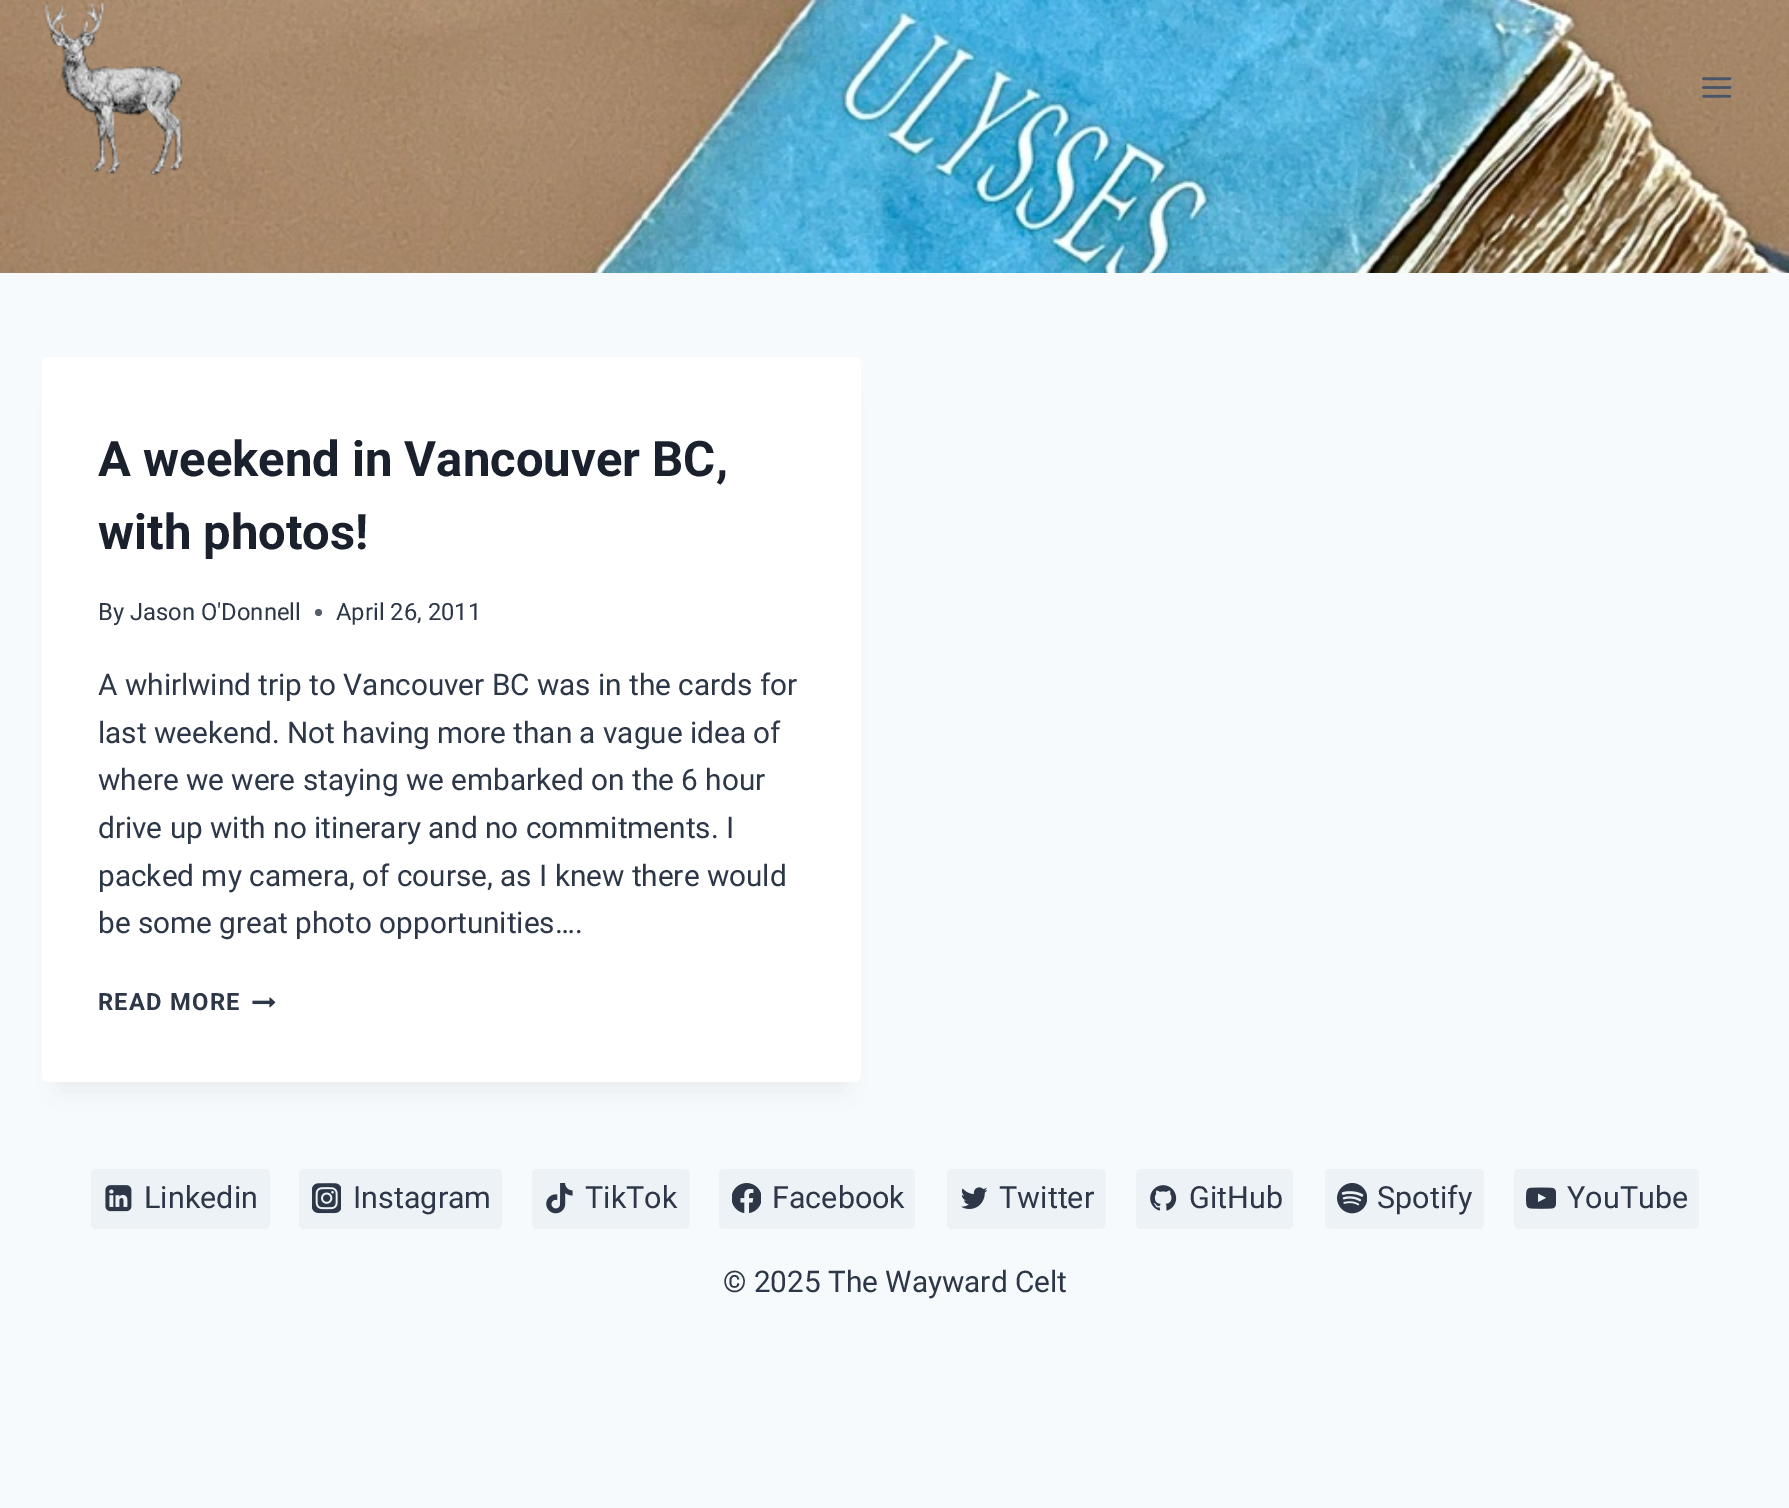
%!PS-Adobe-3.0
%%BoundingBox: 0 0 1789 1508
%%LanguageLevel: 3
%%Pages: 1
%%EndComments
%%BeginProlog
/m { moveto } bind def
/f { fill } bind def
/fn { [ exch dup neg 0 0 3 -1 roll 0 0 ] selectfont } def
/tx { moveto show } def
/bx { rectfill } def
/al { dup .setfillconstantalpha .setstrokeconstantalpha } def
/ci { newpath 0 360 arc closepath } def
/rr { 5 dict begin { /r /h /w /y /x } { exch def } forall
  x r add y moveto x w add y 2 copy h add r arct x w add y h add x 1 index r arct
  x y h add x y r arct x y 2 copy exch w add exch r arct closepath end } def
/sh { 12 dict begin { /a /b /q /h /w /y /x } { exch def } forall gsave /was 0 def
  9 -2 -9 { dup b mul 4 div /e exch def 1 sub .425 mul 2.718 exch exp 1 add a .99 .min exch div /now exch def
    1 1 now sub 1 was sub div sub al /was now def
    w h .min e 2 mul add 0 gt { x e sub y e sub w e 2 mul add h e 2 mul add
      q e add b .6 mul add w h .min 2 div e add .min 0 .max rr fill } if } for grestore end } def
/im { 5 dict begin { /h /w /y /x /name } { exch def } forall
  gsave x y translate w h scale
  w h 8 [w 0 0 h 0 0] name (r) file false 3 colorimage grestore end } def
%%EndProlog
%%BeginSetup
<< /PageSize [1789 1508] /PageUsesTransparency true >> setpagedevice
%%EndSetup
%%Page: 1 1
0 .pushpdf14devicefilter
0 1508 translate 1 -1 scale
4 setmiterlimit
0.969 0.98 0.988 setrgbcolor
0 0 1789 1508 bx
(image2.raw) 0 0 1789 273 im
(image0.raw) 45 0 139 175 im
(image1.raw) 1702 77 30 21 im
0 setgray
60 401 784 689 0 13 0.05 sh
1 setgray
42 357 819 725 7 rr f
/Roboto-Bold 49 fn
0.102 0.125 0.173 setrgbcolor
(A weekend in Vancouver BC,) 98 476 tx
(with photos!) 98 549 tx
/Roboto-Regular 23.75 fn
0.176 0.216 0.282 setrgbcolor
(By) 98 620 tx
(Jason O'Donnell) 130 620 tx
0.341 0.373 0.427 setrgbcolor
318.5 612.5 3.5 ci f
0.176 0.216 0.282 setrgbcolor
(April 26, 2011) 336 620 tx
/Roboto-Regular 29.75 fn
(A whirlwind trip to Vancouver BC was in the cards for) 98 695 tx
(last weekend. Not having more than a vague idea of) 98 743 tx
(where we were staying we embarked on the 6 hour) 98 790 tx
(drive up with no itinerary and no commitments. I) 98 838 tx
(packed my camera, of course, as I knew there would) 98 886 tx
(be some great photo opportunities….) 98 933 tx
/Roboto-Bold 23.75 fn
98 1010 m 1.25 0 (READ MORE) ashow
(image3.raw) 252 997 24 11 im
0.929 0.949 0.969 setrgbcolor
91 1169 179 60 5 rr f
(image4.raw) 105 1185 27 27 im
/Roboto-Regular 30.5 fn
0.176 0.216 0.282 setrgbcolor
(Linkedin) 144 1208 tx
0.929 0.949 0.969 setrgbcolor
299 1169 203 60 5 rr f
(image5.raw) 312 1183 29 31 im
0.176 0.216 0.282 setrgbcolor
(Instagram) 353 1208 tx
0.929 0.949 0.969 setrgbcolor
532 1169 158 60 5 rr f
(image6.raw) 546 1183 27 31 im
0.176 0.216 0.282 setrgbcolor
(TikTok) 585 1208 tx
0.929 0.949 0.969 setrgbcolor
719 1169 196 60 5 rr f
(image7.raw) 732 1183 29 31 im
0.176 0.216 0.282 setrgbcolor
(Facebook) 772 1208 tx
0.929 0.949 0.969 setrgbcolor
947 1169 159 60 5 rr f
(image8.raw) 961 1187 27 22 im
0.176 0.216 0.282 setrgbcolor
(Twitter) 999 1208 tx
0.929 0.949 0.969 setrgbcolor
1136 1169 157 60 5 rr f
(image9.raw) 1150 1185 27 26 im
0.176 0.216 0.282 setrgbcolor
(GitHub) 1189 1208 tx
0.929 0.949 0.969 setrgbcolor
1325 1169 159 60 5 rr f
(image10.raw) 1337 1183 30 31 im
0.176 0.216 0.282 setrgbcolor
(Spotify) 1377 1208 tx
0.929 0.949 0.969 setrgbcolor
1514 1169 185 60 5 rr f
(image11.raw) 1526 1187 30 22 im
0.176 0.216 0.282 setrgbcolor
(YouTube) 1567 1208 tx
/Roboto-Regular 29.75 fn
(© 2025 The Wayward Celt) 723 1292 tx
.poppdf14devicefilter showpage
%%EOF
